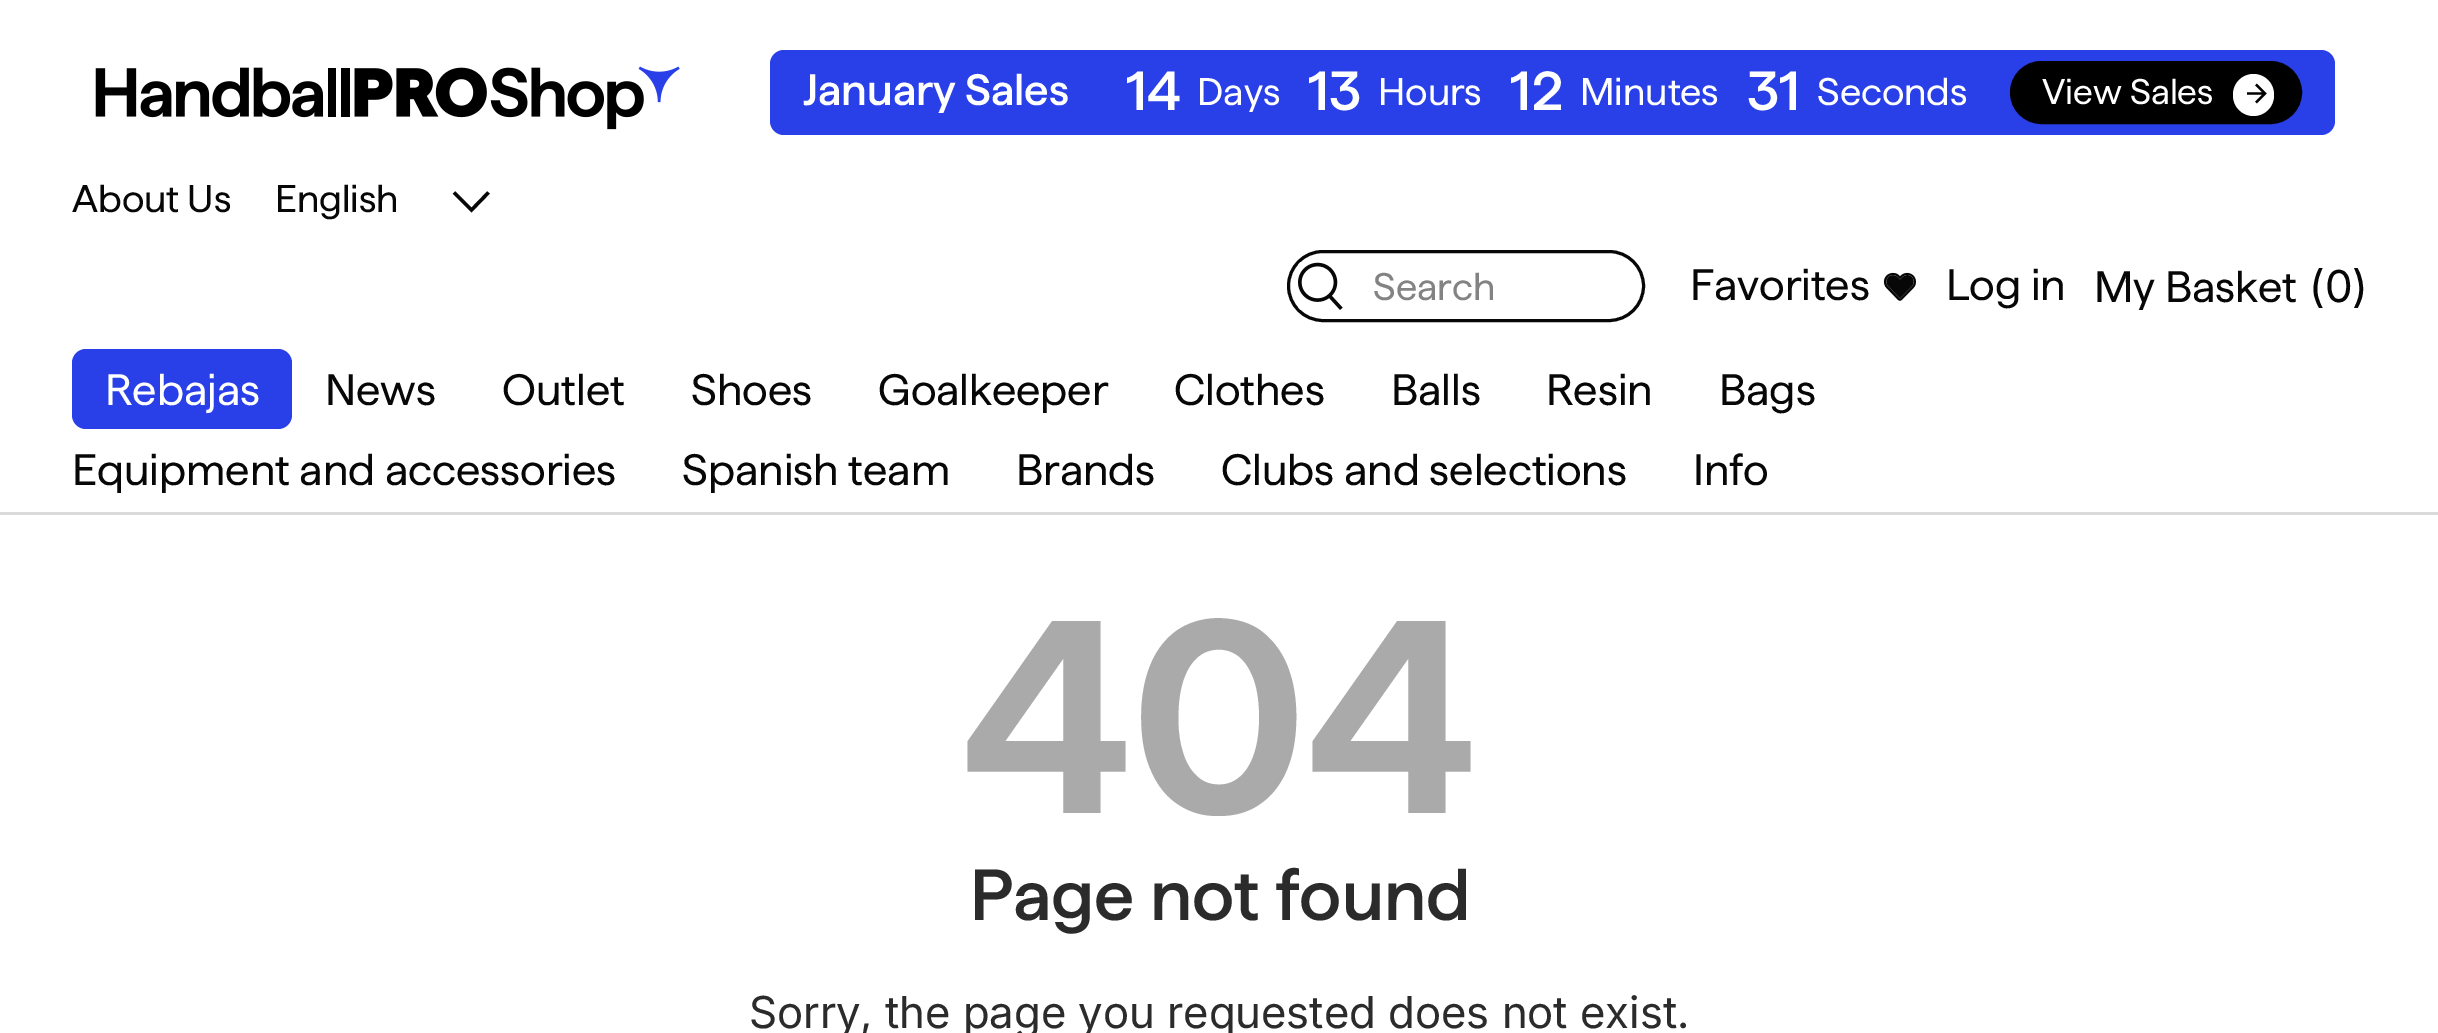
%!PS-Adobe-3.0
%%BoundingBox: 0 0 2438 1033
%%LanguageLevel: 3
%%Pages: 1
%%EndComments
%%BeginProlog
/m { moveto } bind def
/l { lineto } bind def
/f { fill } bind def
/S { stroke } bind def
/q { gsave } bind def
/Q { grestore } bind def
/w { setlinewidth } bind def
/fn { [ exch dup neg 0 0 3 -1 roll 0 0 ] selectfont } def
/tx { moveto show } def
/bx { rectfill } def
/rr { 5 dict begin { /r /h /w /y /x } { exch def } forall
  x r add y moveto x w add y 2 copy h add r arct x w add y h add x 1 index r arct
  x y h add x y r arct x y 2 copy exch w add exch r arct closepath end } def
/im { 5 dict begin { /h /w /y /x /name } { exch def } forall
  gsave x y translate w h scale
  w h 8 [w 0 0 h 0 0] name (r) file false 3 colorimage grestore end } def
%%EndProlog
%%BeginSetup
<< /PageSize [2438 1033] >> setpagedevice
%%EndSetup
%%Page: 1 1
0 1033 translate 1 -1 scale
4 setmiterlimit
1 setgray
0 0 2438 1033 bx
0.855 setgray
0 512 2438 3 bx
(image0.raw) 95 66 585 64 im
0.161 0.251 0.91 setrgbcolor
770 50 1565 85 14 rr f
/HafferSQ-Medium 44 fn
1 setgray
(January Sales) 803 105 tx
/HafferSQ-Medium 55 fn
(14) 1126 110 tx
/HafferSQ-Regular 38.5 fn
(Days) 1197 105 tx
/HafferSQ-Medium 55 fn
(13) 1308 110 tx
/HafferSQ-Regular 38.5 fn
(Hours) 1378 105 tx
/HafferSQ-Medium 55 fn
(12) 1510 110 tx
/HafferSQ-Regular 38.5 fn
(Minutes) 1580 105 tx
/HafferSQ-Medium 55 fn
(31) 1747 110 tx
/HafferSQ-Regular 38.5 fn
(Seconds) 1817 105 tx
0 setgray
2013 64 286 57 28.5 rr q f Q
6 w
S
/HafferSQ-Regular 35.75 fn
1 setgray
(View Sales) 2042 104 tx
2233 74 41 42 20.5 rr f
0 setgray
2.2 w
2247 93.5 m 2264.5 93.5 l 2256 84.5 m 2265 93.5 l 2256 102.5 l S
/HafferSQ-Regular 38.5 fn
0.027 setgray
(About Us) 72 212 tx
(English) 275 212 tx
3.4 w
488.5 192.5 m 471.5 210 l 454 192.5 l S
3 w
1288.5 251.5 355 69 34.5 rr S
(image1.raw) 1298 262 45 48 im
0.514 setgray
(Search) 1373 300 tx
/HafferSQ-Regular 44 fn
0.027 setgray
(Favorites) 1690 300 tx
(image2.raw) 1883 272 33 29 im
(Log in) 1946 300 tx
(My Basket) 2094 302 tx
/Inter-Regular 44 fn
(\(0\)) 2309 302 tx
0.161 0.251 0.91 setrgbcolor
72 349 220 80 14 rr f
/HafferSQ-Regular 44 fn
1 setgray
(Rebajas) 105 405 tx
0.027 setgray
(News) 325 405 tx
(Outlet) 502 405 tx
(Shoes) 691 405 tx
(Goalkeeper) 878 405 tx
(Clothes) 1174 405 tx
(Balls) 1391 405 tx
(Resin) 1546 405 tx
(Bags) 1719 405 tx
(Equipment and accessories) 72 485 tx
(Spanish team) 682 485 tx
(Brands) 1016 485 tx
(Clubs and selections) 1221 485 tx
(Info) 1693 485 tx
/Inter-Bold 264 fn
0.667 setgray
(404) 960 813 tx
/HafferSQ-Medium 72.25 fn
0.165 0.169 0.165 setrgbcolor
(Page not found) 970 920 tx
/Inter-Regular 44 fn
(Sorry, the page you requested does not exist.) 749 1028 tx
showpage
%%EOF
